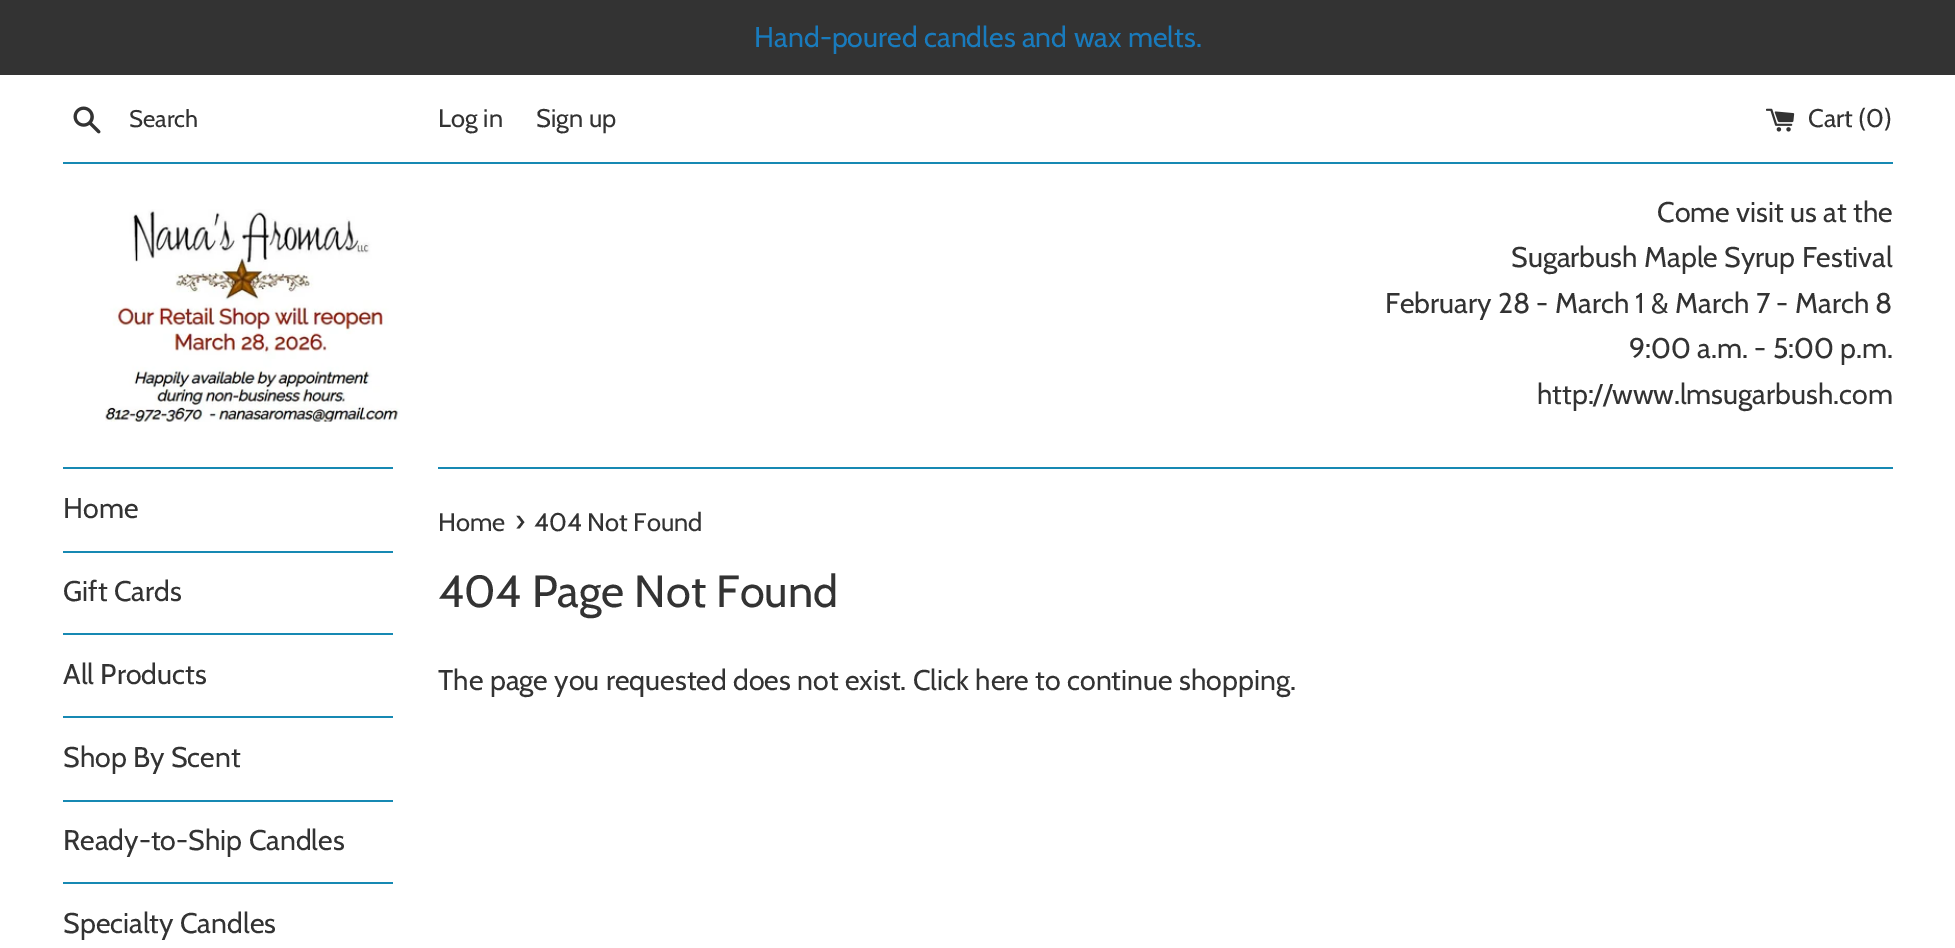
%!PS-Adobe-3.0
%%BoundingBox: 0 0 1955 948
%%LanguageLevel: 3
%%Pages: 1
%%EndComments
%%BeginProlog
/fn { [ exch dup neg 0 0 3 -1 roll 0 0 ] selectfont } def
/tx { moveto show } def
/bx { rectfill } def
/im { 5 dict begin { /h /w /y /x /name } { exch def } forall
  gsave x y translate w h scale
  w h 8 [w 0 0 h 0 0] name (r) file false 3 colorimage grestore end } def
%%EndProlog
%%BeginSetup
<< /PageSize [1955 948] >> setpagedevice
%%EndSetup
%%Page: 1 1
0 948 translate 1 -1 scale
4 setmiterlimit
1 setgray
0 0 1955 948 bx
0.2 setgray
0 0 1955 75 bx
/Cabin-Regular 28.5 fn
0.098 0.482 0.741 setrgbcolor
(Hand-poured candles and wax melts.) 754 47 tx
(image0.raw) 73 106 28 28 im
/Cabin-Regular 24 fn
0.2 setgray
(Search) 129 127 tx
/Cabin-Regular 25.5 fn
(Log in) 438 127 tx
(Sign up) 536 127 tx
(image1.raw) 1766 108 29 24 im
(Cart \(0\)) 1808 127 tx
0.09 0.537 0.702 setrgbcolor
63 162 1830 2 bx
(image2.raw) 105 209 295 213 im
/Cabin-Regular 28.5 fn
0.2 setgray
(Come visit us at the) 1657 222 tx
(Sugarbush Maple Syrup Festival) 1511 267 tx
(February 28 - March 1 & March 7 - March 8) 1385 313 tx
(9:00 a.m. - 5:00 p.m.) 1629 358 tx
(http://www.lmsugarbush.com) 1537 404 tx
0.09 0.537 0.702 setrgbcolor
63 467 330 2 bx
63 551 330 2 bx
0.2 setgray
(Home) 63 518 tx
0.09 0.537 0.702 setrgbcolor
63 633 330 2 bx
0.2 setgray
(Gift Cards) 63 601 tx
0.09 0.537 0.702 setrgbcolor
63 716 330 2 bx
0.2 setgray
(All Products) 63 684 tx
0.09 0.537 0.702 setrgbcolor
63 800 330 2 bx
0.2 setgray
(Shop By Scent) 63 767 tx
0.09 0.537 0.702 setrgbcolor
63 882 330 2 bx
0.2 setgray
(Ready-to-Ship Candles) 63 850 tx
(Specialty Candles) 63 933 tx
0.09 0.537 0.702 setrgbcolor
438 467 1455 2 bx
/Cabin-Regular 25.5 fn
0.2 setgray
(Home) 438 531 tx
/Cabin-Regular 31 fn
(›) 515 531 tx
/Cabin-Regular 25.5 fn
(404 Not Found) 534 531 tx
/Cabin-Regular 45 fn
(404 Page Not Found) 438 607 tx
/Cabin-Regular 28.5 fn
(The page you requested does not exist. Click here to continue shopping.) 438 690 tx
showpage
%%EOF
